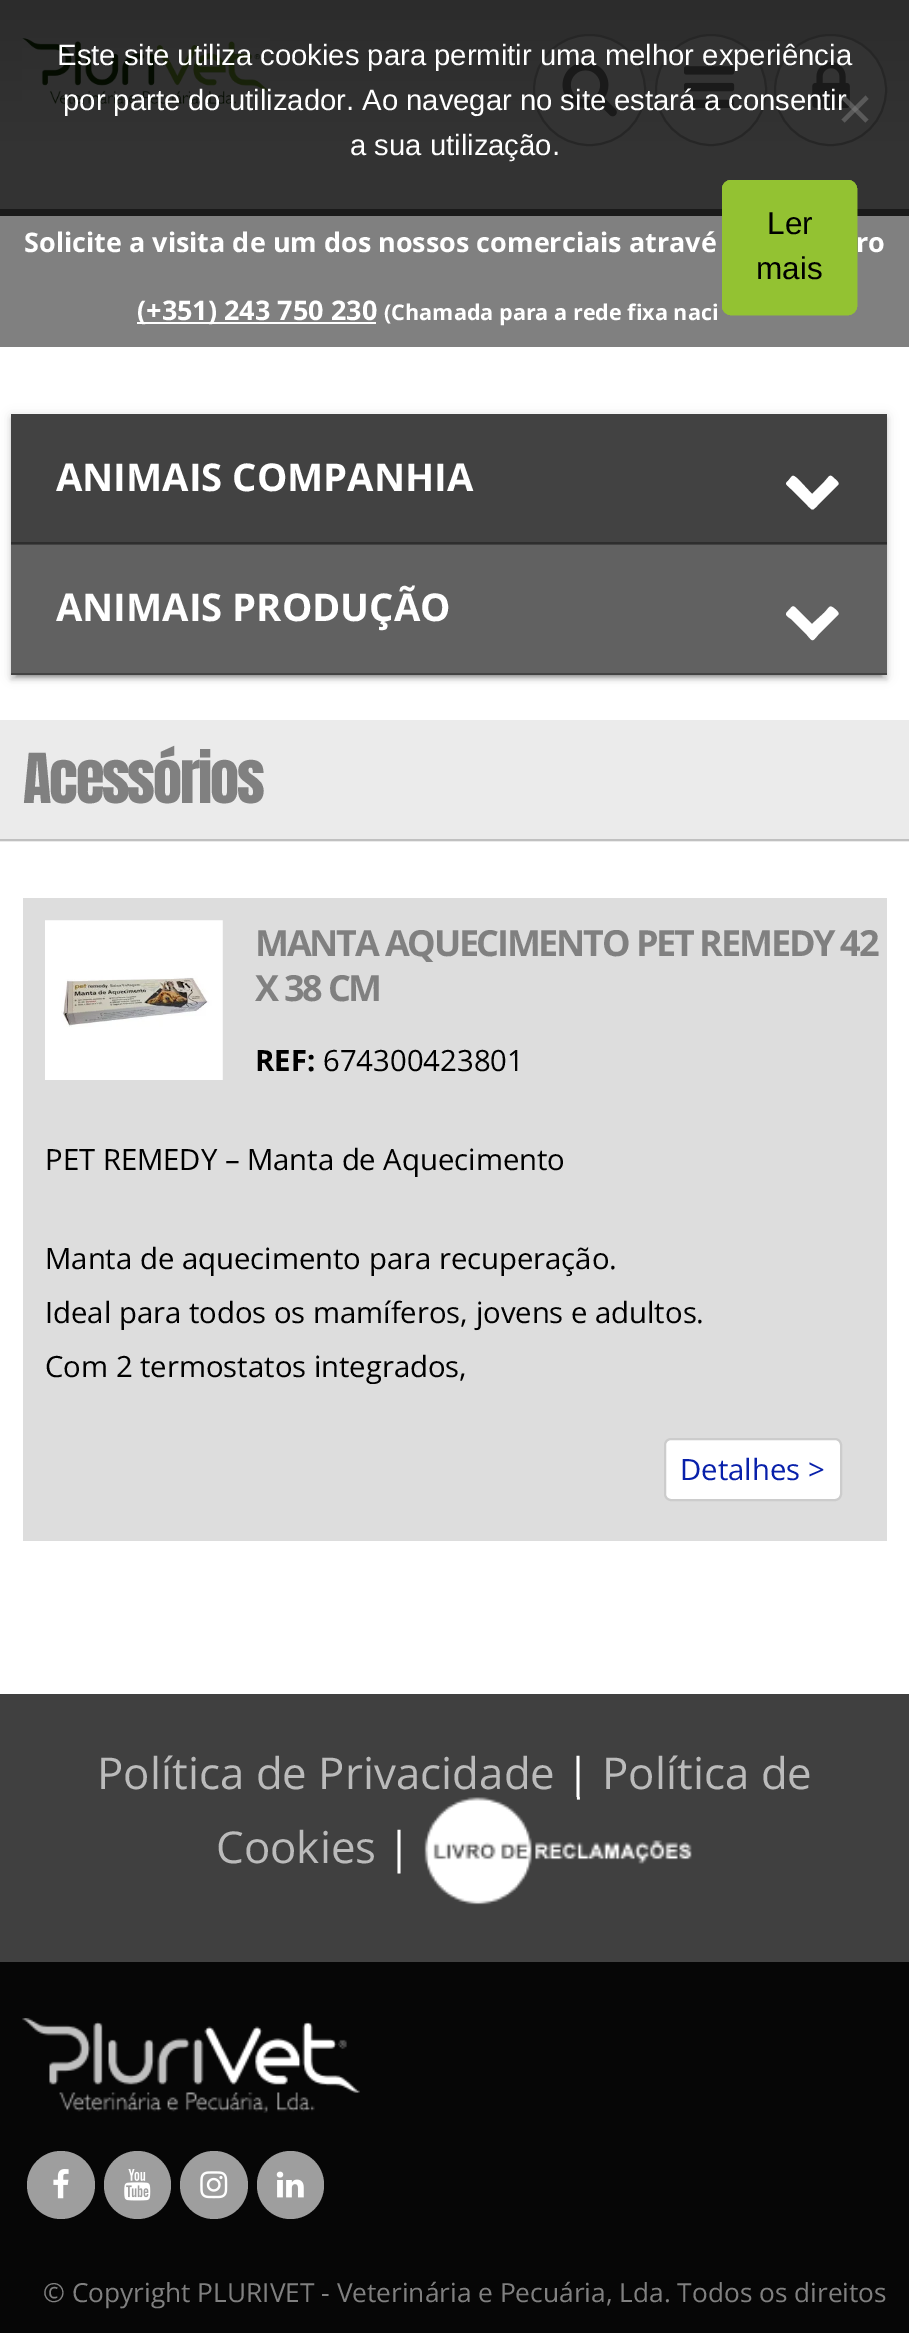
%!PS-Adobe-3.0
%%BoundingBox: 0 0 909 2333
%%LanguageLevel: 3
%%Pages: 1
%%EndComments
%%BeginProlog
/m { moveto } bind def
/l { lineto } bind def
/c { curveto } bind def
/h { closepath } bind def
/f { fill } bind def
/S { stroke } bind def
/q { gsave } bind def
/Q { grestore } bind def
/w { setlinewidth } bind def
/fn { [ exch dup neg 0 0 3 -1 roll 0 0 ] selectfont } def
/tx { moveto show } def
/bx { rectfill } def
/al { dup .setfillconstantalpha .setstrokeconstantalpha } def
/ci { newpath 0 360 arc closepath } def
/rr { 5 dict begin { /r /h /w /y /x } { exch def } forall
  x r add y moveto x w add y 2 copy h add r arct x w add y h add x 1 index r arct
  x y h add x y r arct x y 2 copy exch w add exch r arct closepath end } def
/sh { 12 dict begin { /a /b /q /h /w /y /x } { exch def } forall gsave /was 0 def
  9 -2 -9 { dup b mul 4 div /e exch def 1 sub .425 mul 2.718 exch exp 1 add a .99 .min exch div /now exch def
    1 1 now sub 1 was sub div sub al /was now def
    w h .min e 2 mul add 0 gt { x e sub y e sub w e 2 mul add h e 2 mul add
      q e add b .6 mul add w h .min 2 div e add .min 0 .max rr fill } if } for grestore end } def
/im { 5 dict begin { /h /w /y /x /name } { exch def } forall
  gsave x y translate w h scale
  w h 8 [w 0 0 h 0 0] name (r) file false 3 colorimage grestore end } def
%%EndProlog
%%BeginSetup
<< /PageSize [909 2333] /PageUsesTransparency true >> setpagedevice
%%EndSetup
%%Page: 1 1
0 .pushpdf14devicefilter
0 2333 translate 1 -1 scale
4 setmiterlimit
1 setgray
0 0 909 2333 bx
0.2 setgray
0 142 909 67 bx
q 0 0 m 909 0 l 909 142 l 0 142 l h clip newpath
<< /ShadingType 2 /ColorSpace /DeviceRGB /Coords [455 0 455 142] /Extend [true true] /Function << /FunctionType 2 /Domain [0 1] /C0 [0.173 0.173 0.173] /C1 [0.2 0.2 0.2] /N 1 >> >> shfill Q
(image0.raw) 22 38 248 68 im
534 35 111 110 55 rr q f Q
0.149 setgray
2 w
S
(image1.raw) 562 62 55 55 im
0.2 setgray
711 90 55 ci q f Q
0.149 setgray
S
(image2.raw) 684 66 51 42 im
0.2 setgray
775 35 111 110 55 rr q f Q
0.149 setgray
S
(image3.raw) 812 62 38 46 im
/LiberationSans-Regular 29.25 fn
1 setgray
(Este site utiliza cookies para permitir uma melhor experiência) 57 65 tx
(por parte do utilizador. Ao navegar no site estará a consentir) 63 110 tx
(a sua utilização.) 350 155 tx
0.353 setgray
865.5 95.5 m 868.5 99 l 844.5 122.5 l 841.5 119.5 l h f
0.5 al
0.502 setgray
841.5 99 m 844.5 95.5 l 868.5 119.5 l 865.5 122.5 l h f
1 al
0 216 909 131 bx
0.102 setgray
0 209 909 7 bx
0.576 0.761 0.196 setrgbcolor
723 181 133 133 8 rr S
723 181 133 133 8 rr q f Q
S
/LiberationSans-Regular 31.5 fn
0 setgray
(Ler) 767 234 tx
(mais) 756 279 tx
/OpenSans-Bold 27 fn
1 setgray
(Solicite a visita de um dos nossos comerciais atravé) 24 252 tx
(ro) 856 252 tx
137 322 239 2 bx
(\(+351\) 243 750 230) 137 320 tx
/OpenSans-Bold 21.6 fn
(\(Chamada para a rede fixa naci) 384 320 tx
0 setgray
11 416 876 261 0 5.5 0.12 sh
16 425 866 252 0 1 0.2 sh
11 419 876 261 0 2 0.14 sh
0.38 setgray
11 545 876 128 bx
0.259 setgray
11 414 876 131 bx
0.18 setgray
11 542 876 2 bx
/OpenSans-Bold 38.25 fn
1 setgray
(ANIMAIS COMPANHIA) 56 491 tx
838 485 m 818 505 l 812 511 813 511 807 505 c 791 489 l 787 485 784 484 788 481 c 793 475 792 474 798 479 c 812 494 l 824 482 l 830 476 829 473 835 479 c 836 480 840 483 838 485 c h f
0.267 setgray
11 673 876 2 bx
1 setgray
(ANIMAIS PRODUÇÃO) 56 621 tx
838 615 m 818 635 l 812 642 813 642 807 635 c 791 619 l 787 616 784 615 788 611 c 793 606 792 604 798 610 c 812 624 l 824 613 l 830 607 829 604 835 609 c 836 610 840 613 838 615 c h f
0.922 setgray
0 720 909 122 bx
0.753 setgray
0 839 909 2 bx
/Anton-Regular 58.5 fn
0.502 setgray
23 803 m -2.25 0 (Acessórios) ashow
0.867 setgray
23 898 864 643 bx
(image4.raw) 45 920 178 160 im
/OpenSans-Bold 36 fn
0.502 setgray
255 956 m -2.25 0 (MANTA AQUECIMENTO PET REMEDY 42) ashow
255 1001 m -2.25 0 (X 38 CM) ashow
/OpenSans-Bold 29.25 fn
0 setgray
(REF:) 255 1071 tx
/OpenSans-Regular 29.25 fn
(674300423801) 323 1071 tx
(PET REMEDY – Manta de Aquecimento) 45 1170 tx
(Manta de aquecimento para recuperação.) 45 1269 tx
(Ideal para todos os mamíferos, jovens e adultos.) 45 1323 tx
(Com 2 termostatos integrados,) 45 1377 tx
1 setgray
665 1439 176 61 6 rr q f Q
0.8 setgray
S
0.031 0.125 0.667 setrgbcolor
(Detalhes >) 680 1480 tx
0.251 setgray
0 1694 909 268 bx
/OpenSans-Regular 43.9 fn
0.733 setgray
(Política de Privacidade) 97 1789 tx
1 setgray
(|) 566 1789 tx
0.733 setgray
(Política de) 602 1789 tx
(Cookies) 216 1863 tx
1 setgray
(|) 387 1863 tx
(image5.raw) 424 1797 268 108 im
0.024 setgray
0 1962 909 371 bx
(image6.raw) 22 2018 338 95 im
0.62 setgray
61 2185 34 ci f
(image7.raw) 53 2169 16 30 im
104 2151 67 68 33.5 rr f
(image8.raw) 124 2169 27 32 im
214 2185 34 ci f
(image9.raw) 200 2171 28 28 im
257 2151 67 68 33.5 rr f
(image10.raw) 276 2171 28 27 im
/OpenSans-Regular 26.3 fn
0.502 setgray
(© Copyright PLURIVET - Veterinária e Pecuária, Lda. Todos os direitos) 43 2302 tx
.poppdf14devicefilter showpage
%%EOF
